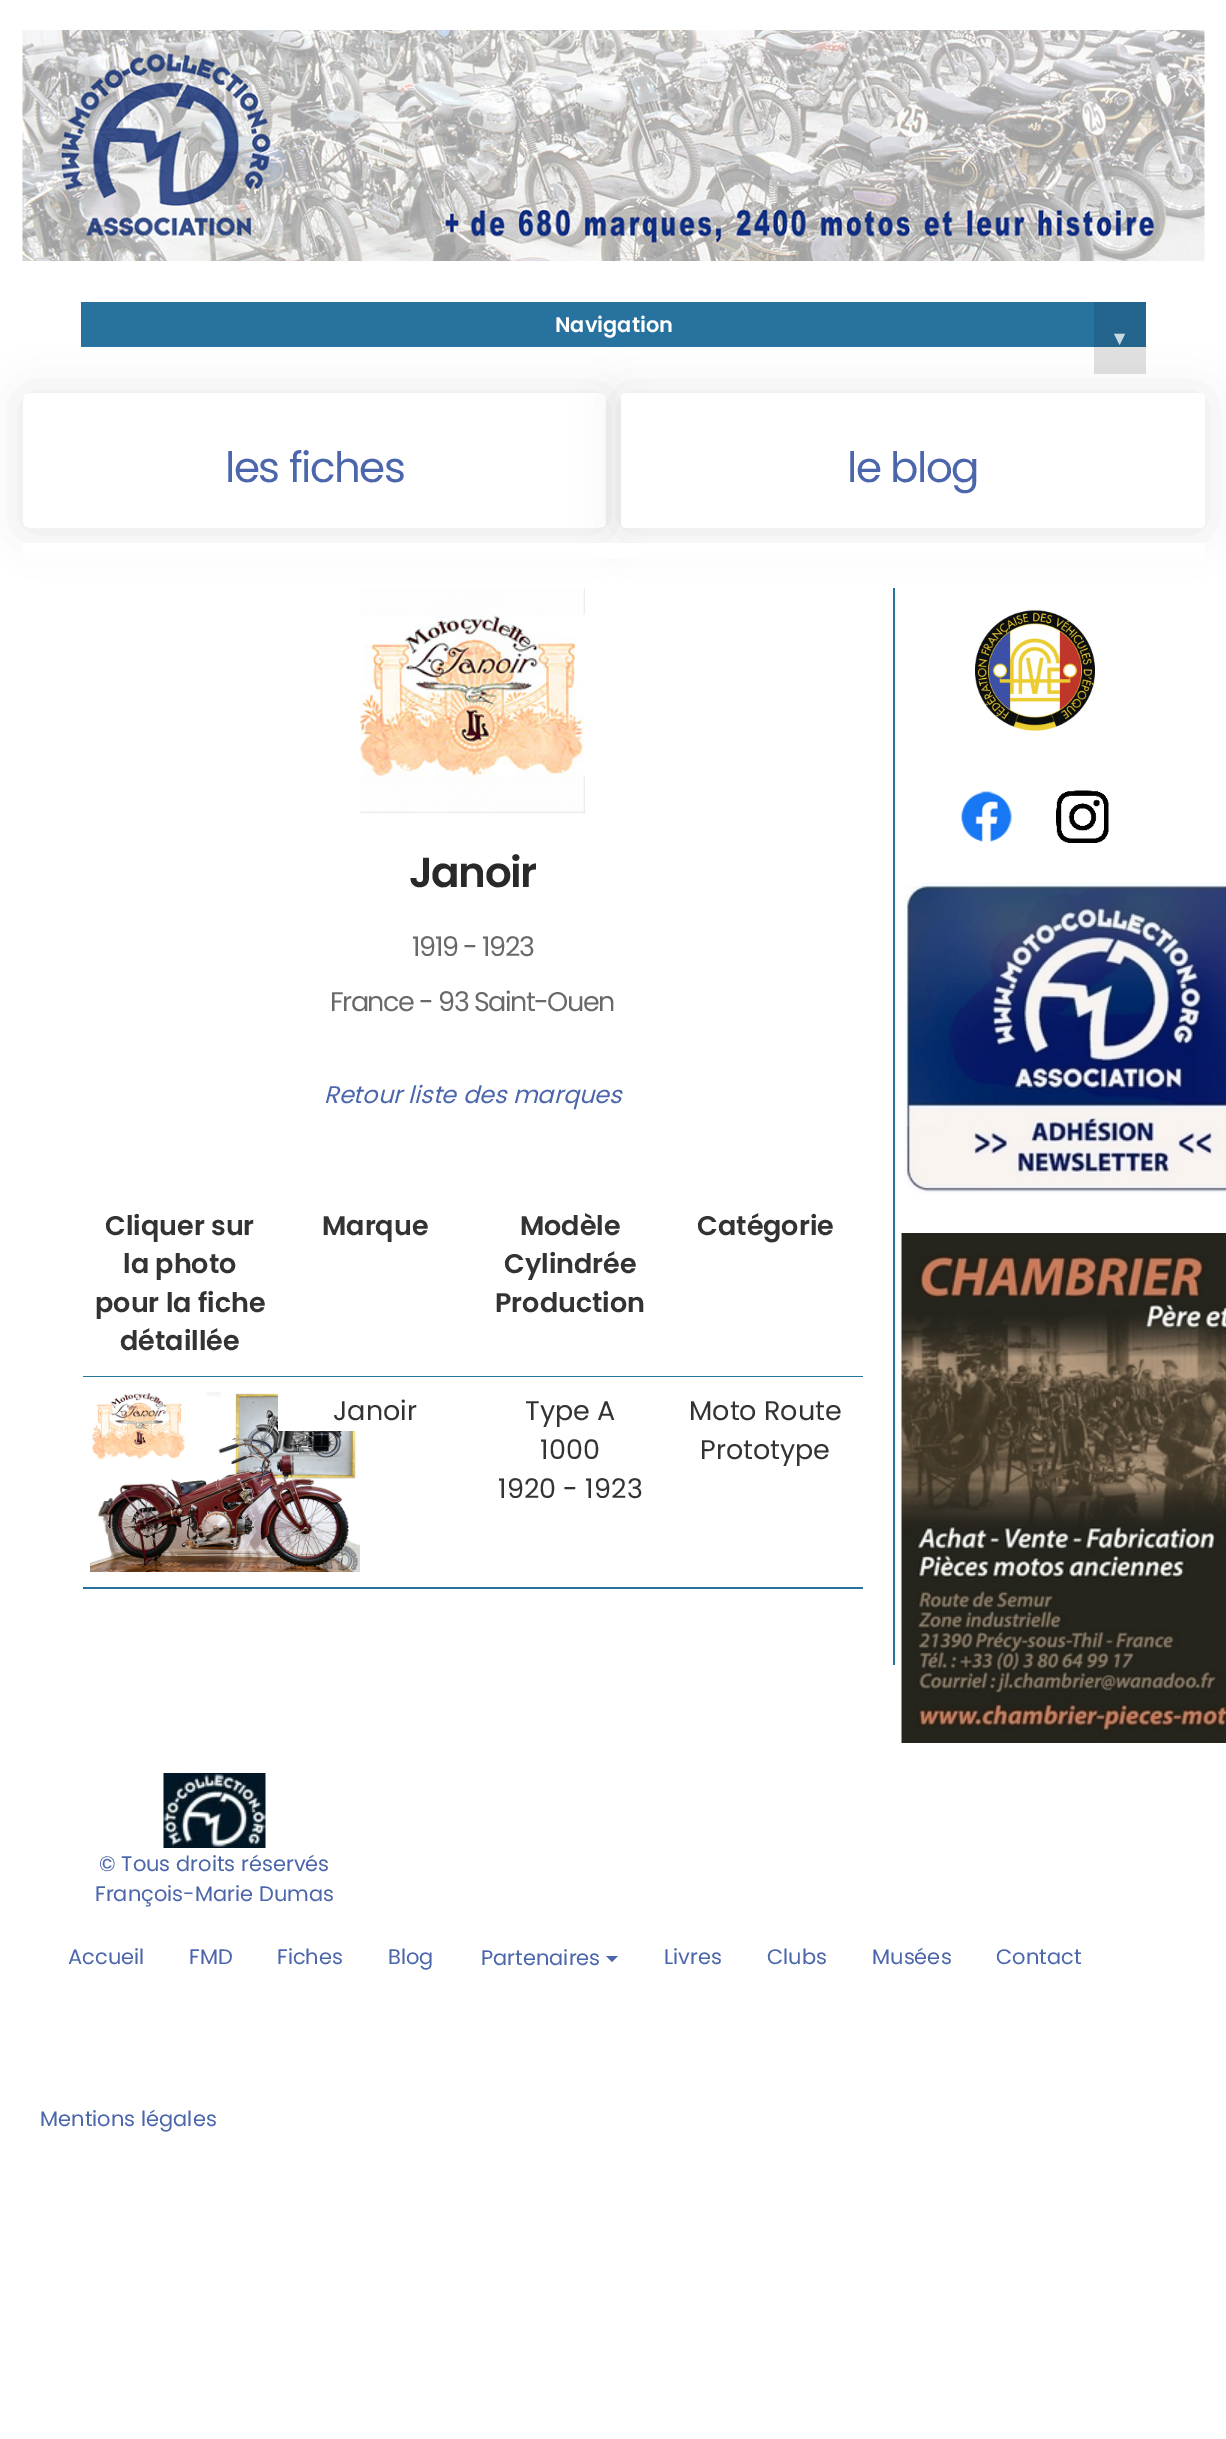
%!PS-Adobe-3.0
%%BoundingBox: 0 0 1226 2439
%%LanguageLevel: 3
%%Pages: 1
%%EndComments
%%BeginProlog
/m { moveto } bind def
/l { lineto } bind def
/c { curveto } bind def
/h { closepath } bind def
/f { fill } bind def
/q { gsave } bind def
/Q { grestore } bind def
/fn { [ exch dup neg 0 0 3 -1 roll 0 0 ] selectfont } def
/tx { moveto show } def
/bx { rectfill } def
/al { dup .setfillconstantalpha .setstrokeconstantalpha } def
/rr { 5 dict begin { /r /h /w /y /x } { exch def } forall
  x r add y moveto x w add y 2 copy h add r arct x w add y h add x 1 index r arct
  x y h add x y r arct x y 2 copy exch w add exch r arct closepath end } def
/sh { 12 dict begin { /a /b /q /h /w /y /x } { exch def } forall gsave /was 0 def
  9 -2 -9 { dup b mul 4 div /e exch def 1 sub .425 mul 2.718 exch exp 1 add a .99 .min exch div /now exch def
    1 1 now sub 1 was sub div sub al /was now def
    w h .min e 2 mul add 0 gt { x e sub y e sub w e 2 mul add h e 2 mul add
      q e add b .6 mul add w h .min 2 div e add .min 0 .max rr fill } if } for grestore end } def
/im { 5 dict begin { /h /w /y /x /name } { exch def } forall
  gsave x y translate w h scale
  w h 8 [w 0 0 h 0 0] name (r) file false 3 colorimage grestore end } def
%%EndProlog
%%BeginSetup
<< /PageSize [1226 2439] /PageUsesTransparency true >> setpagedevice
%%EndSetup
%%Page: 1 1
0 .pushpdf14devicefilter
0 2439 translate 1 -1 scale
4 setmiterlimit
1 setgray
0 0 1226 2439 bx
(image0.raw) 22 30 1183 231 im
q
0 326 m 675 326 l 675 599 l 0 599 l h 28 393 m 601 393 l 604 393 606 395 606 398 c 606 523 l 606 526 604 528 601 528 c 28 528 l 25 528 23 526 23 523 c 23 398 l 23 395 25 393 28 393 c h eoclip newpath
0 setgray
23 395 583 135 5 22.5 0.1 sh
Q
0 setgray
621 395 584 135 5 22.5 0.1 sh
0.157 0.447 0.624 setrgbcolor
81 302 1065 45 bx
/Poppins-SemiBold 21 fn
1 setgray
(Navigation) 555 332 tx
0.12 al
0 setgray
1094 302 52 72 bx
/DejaVuSans-Bold 21 fn
1 al
0.784 0.847 0.886 setrgbcolor
(▾) 1114 345 tx
/Poppins-Regular 42 fn
0.294 0.4 0.671 setrgbcolor
225 482 m -1.5 0 (les fiches) ashow
1 setgray
621 393 584 135 5 rr f
0.294 0.4 0.671 setrgbcolor
847 482 m -1.5 0 (le blog) ashow
1 setgray
23 543 1182 16 bx
0.157 0.447 0.624 setrgbcolor
893 588 2 1077 bx
(image1.raw) 360 588 225 225 im
/Poppins-SemiBold 42 fn
0.161 setgray
409 887 m -1.5 0 (Janoir) ashow
/Poppins-Regular 27 fn
0.412 setgray
412 956 m -1.5 0 (1919 - 1923) ashow
330 1011 m -1.5 0 (France - 93 Saint-Ouen) ashow
/Poppins-Italic 24 fn
0.294 0.4 0.671 setrgbcolor
(Retour liste des marques) 324 1103 tx
0.157 0.447 0.624 setrgbcolor
83 1376 780 1 bx
/Poppins-SemiBold 27 fn
0.2 setgray
(Cliquer sur) 105 1235 tx
(la photo) 123 1273 tx
(pour la fiche) 95 1312 tx
(détaillée) 120 1350 tx
(Marque) 322 1235 tx
(Modèle) 520 1235 tx
(Cylindrée) 504 1273 tx
(Production) 495 1312 tx
(Catégorie) 697 1235 tx
0.157 0.447 0.624 setrgbcolor
83 1587 780 2 bx
(image2.raw) 90 1392 270 180 im
1 setgray
278 1392 78 39 bx
/Poppins-Regular 27 fn
0.2 setgray
(Janoir) 333 1420 tx
(Type A) 525 1420 tx
(1000) 540 1459 tx
(1920 - 1923) 498 1498 tx
(Moto Route) 689 1420 tx
(Prototype) 700 1459 tx
(image3.raw) 975 610 120 121 im
(image4.raw) 961 791 51 51 im
(image5.raw) 1056 790 53 53 im
(image6.raw) 904 882 322 312 im
(image7.raw) 901 1233 325 510 im
(image8.raw) 163 1773 103 75 im
/Poppins-Regular 21 fn
0.294 0.4 0.671 setrgbcolor
(© Tous droits réservés) 99 1871 tx
(François-Marie Dumas) 95 1901 tx
(Accueil) 68 1964 tx
(FMD) 189 1964 tx
(Fiches) 277 1964 tx
(Blog) 388 1964 tx
(Partenaires) 481 1965 tx
606 1956 m 618 1956 l 612 1962 l h f
(Livres) 664 1964 tx
(Clubs) 767 1964 tx
(Musées) 872 1964 tx
(Contact) 996 1964 tx
(Mentions légales) 40 2126 tx
.poppdf14devicefilter showpage
%%EOF
